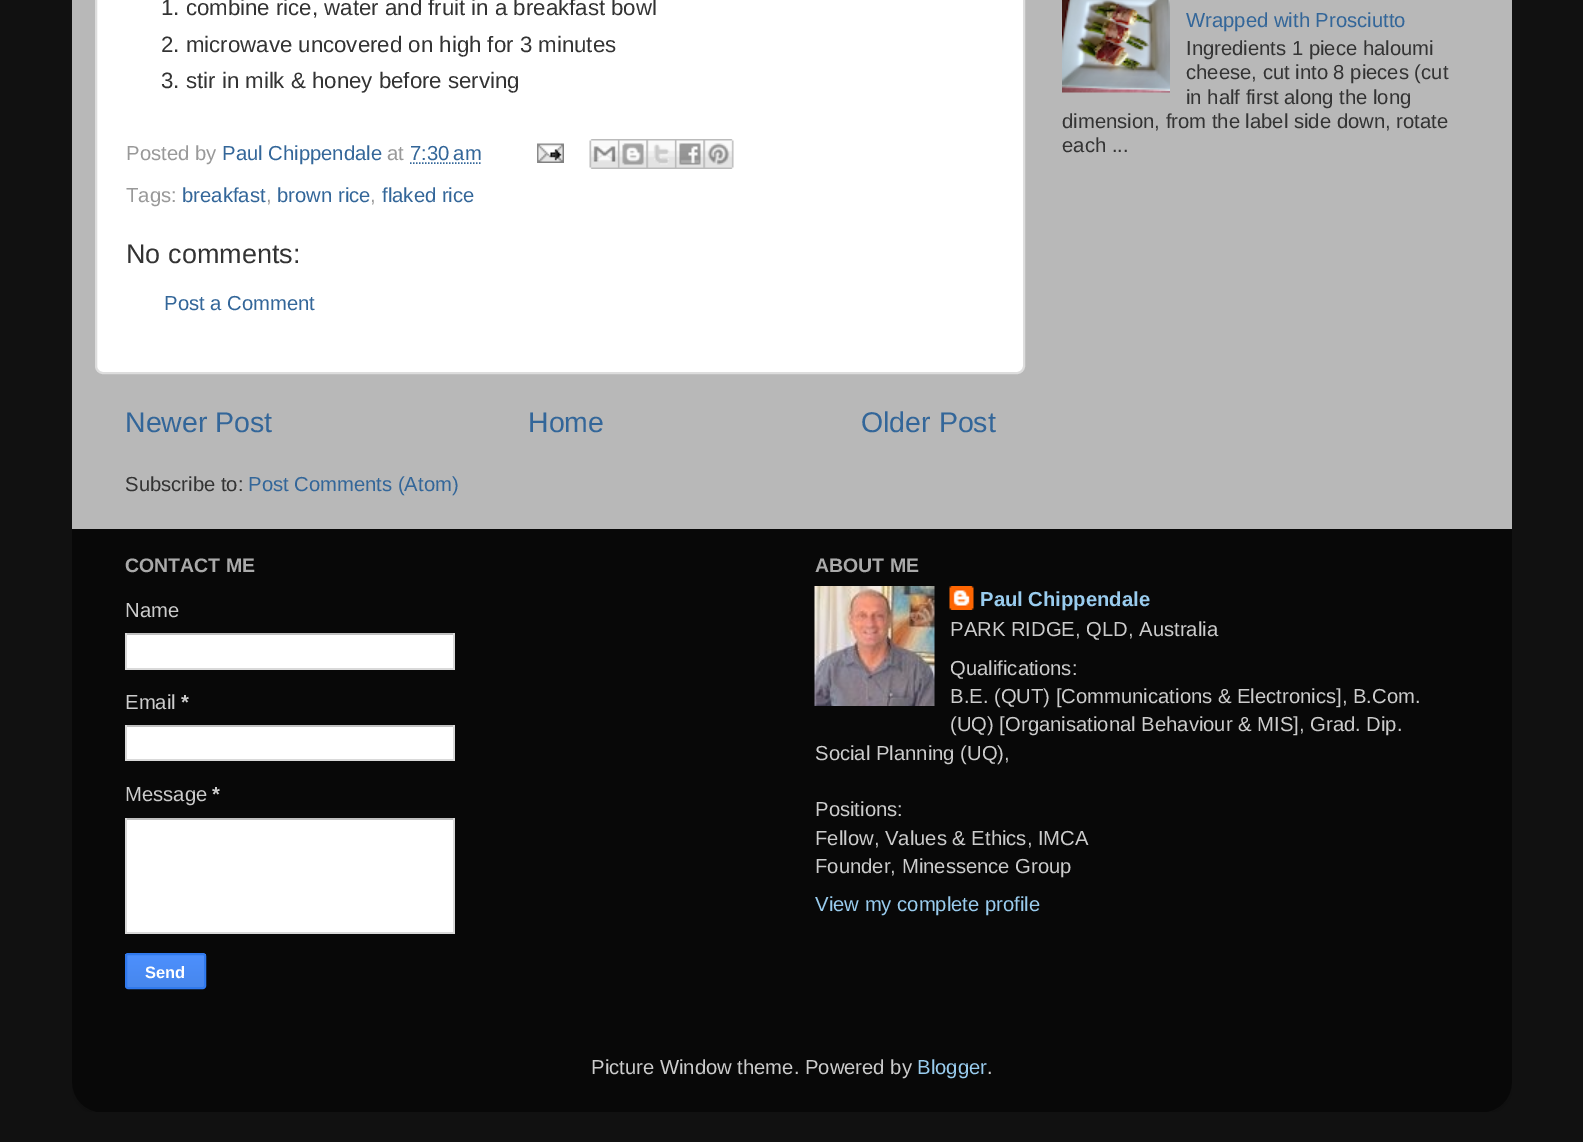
%!PS-Adobe-3.0
%%BoundingBox: 0 0 1583 1142
%%LanguageLevel: 3
%%Pages: 1
%%EndComments
%%BeginProlog
/m { moveto } bind def
/l { lineto } bind def
/h { closepath } bind def
/f { fill } bind def
/S { stroke } bind def
/q { gsave } bind def
/Q { grestore } bind def
/w { setlinewidth } bind def
/fn { [ exch dup neg 0 0 3 -1 roll 0 0 ] selectfont } def
/tx { moveto show } def
/bx { rectfill } def
/rr { 5 dict begin { /r /h /w /y /x } { exch def } forall
  x r add y moveto x w add y 2 copy h add r arct x w add y h add x 1 index r arct
  x y h add x y r arct x y 2 copy exch w add exch r arct closepath end } def
/im { 5 dict begin { /h /w /y /x /name } { exch def } forall
  gsave x y translate w h scale
  w h 8 [w 0 0 h 0 0] name (r) file false 3 colorimage grestore end } def
%%EndProlog
%%BeginSetup
<< /PageSize [1583 1142] >> setpagedevice
%%EndSetup
%%Page: 1 1
0 1142 translate 1 -1 scale
4 setmiterlimit
0.067 setgray
0 0 1583 1142 bx
0.722 setgray
72 0 1440 529 bx
1 setgray
96 -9 928 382 7 rr q f Q
0.867 setgray
2 w
S
/LiberationSans-Regular 22.25 fn
0.2 setgray
(1. combine rice, water and fruit in a breakfast bowl) 161 15 tx
(2. microwave uncovered on high for 3 minutes) 161 52 tx
(3. stir in milk & honey before serving) 161 88 tx
/LiberationSans-Regular 20.25 fn
0.6 setgray
(Posted by) 126 160 tx
0.2 0.4 0.6 setrgbcolor
(Paul Chippendale) 222 160 tx
0.6 setgray
(at) 387 160 tx
0.2 0.4 0.6 setrgbcolor
(7:30 am) 410 160 tx
1.5 w
[1.5 1.5] 0 setdash
410 163 m 481.5 163 l S
(image0.raw) 537 143 27 20 im
(image1.raw) 589 139 29 30 im
(image2.raw) 618 139 29 30 im
(image3.raw) 646 139 29 30 im
(image4.raw) 675 139 29 30 im
(image5.raw) 703 139 31 30 im
0.6 setgray
(Tags:) 126 202 tx
0.2 0.4 0.6 setrgbcolor
(breakfast) 182 202 tx
0.6 setgray
(,) 266 202 tx
0.2 0.4 0.6 setrgbcolor
(brown rice) 277 202 tx
0.6 setgray
(,) 370 202 tx
0.2 0.4 0.6 setrgbcolor
(flaked rice) 382 202 tx
/LiberationSans-Regular 27 fn
0.2 setgray
(No comments:) 126 263 tx
/LiberationSans-Regular 20.25 fn
0.2 0.4 0.6 setrgbcolor
(Post a Comment) 164 310 tx
/LiberationSans-Regular 28.5 fn
(Newer Post) 125 432 tx
(Home) 528 432 tx
(Older Post) 861 432 tx
/LiberationSans-Regular 20.25 fn
0.2 setgray
(Subscribe to:) 125 491 tx
0.2 0.4 0.6 setrgbcolor
(Post Comments \(Atom\)) 248 491 tx
(image6.raw) 1062 0 108 93 im
(Wrapped with Prosciutto) 1186 27 tx
0.2 setgray
(Ingredients 1 piece haloumi) 1186 55 tx
(cheese, cut into 8 pieces \(cut) 1186 79 tx
(in half first along the long) 1186 104 tx
(dimension, from the label side down, rotate) 1062 128 tx
(each ...) 1062 152 tx
(image7.raw) 72 529 1440 583 im
/LiberationSans-Bold 19.5 fn
0.667 setgray
(CONTACT ME) 125 572 tx
/LiberationSans-Regular 20.25 fn
0.8 setgray
(Name) 125 617 tx
1 setgray
127 635 326 33 bx
0.753 setgray
125 633 330 2 bx
0.851 setgray
453 633 2 36 bx
125 668 330 2 bx
125 633 2 36 bx
0.8 setgray
(Email) 125 709 tx
/LiberationSans-Bold 20.25 fn
(*) 181 709 tx
1 setgray
127 727 326 32 bx
0.753 setgray
125 725 330 2 bx
0.851 setgray
453 725 2 36 bx
125 759 330 2 bx
125 725 2 36 bx
/LiberationSans-Regular 20.25 fn
0.8 setgray
(Message) 125 801 tx
/LiberationSans-Bold 20.25 fn
(*) 212 801 tx
1 setgray
127 820 326 112 bx
0.753 setgray
125 818 330 2 bx
0.851 setgray
453 818 2 115 bx
125 932 330 2 bx
125 818 2 115 bx
q
125 953 81 36 3 rr clip newpath
q 125 954 m 206 954 l 206 987 l 125 987 l h clip newpath
<< /ShadingType 2 /ColorSpace /DeviceRGB /Coords [165 954 165 987] /Extend [true true] /Function << /FunctionType 2 /Domain [0 1] /C0 [0.302 0.565 0.996] /C1 [0.278 0.529 0.929] /N 1 >> >> shfill Q
Q
0.188 0.475 0.929 setrgbcolor
2 w
[] 0 setdash
126 954 79 34 2 rr S
/LiberationSans-Bold 16.5 fn
1 setgray
(Send) 145 978 tx
/LiberationSans-Bold 19.5 fn
0.667 setgray
(ABOUT ME) 815 572 tx
(image8.raw) 814 586 121 120 im
(image9.raw) 949 586 25 24 im
/LiberationSans-Bold 20.25 fn
0.6 0.8 0.933 setrgbcolor
(Paul Chippendale) 980 606 tx
/LiberationSans-Regular 20.25 fn
0.8 setgray
(PARK RIDGE, QLD, Australia) 950 636 tx
(Qualifications:) 950 675 tx
(B.E. \(QUT\) [Communications & Electronics], B.Com.) 950 703 tx
(\(UQ\) [Organisational Behaviour & MIS], Grad. Dip.) 950 731 tx
(Social Planning \(UQ\),) 815 760 tx
(Positions:) 815 816 tx
(Fellow, Values & Ethics, IMCA) 815 845 tx
(Founder, Minessence Group) 815 873 tx
0.6 0.8 0.933 setrgbcolor
(View my complete profile) 815 911 tx
0.8 setgray
(Picture Window theme. Powered by) 591 1074 tx
0.6 0.8 0.933 setrgbcolor
(Blogger) 917 1074 tx
0.8 setgray
(.) 987 1074 tx
showpage
%%EOF
